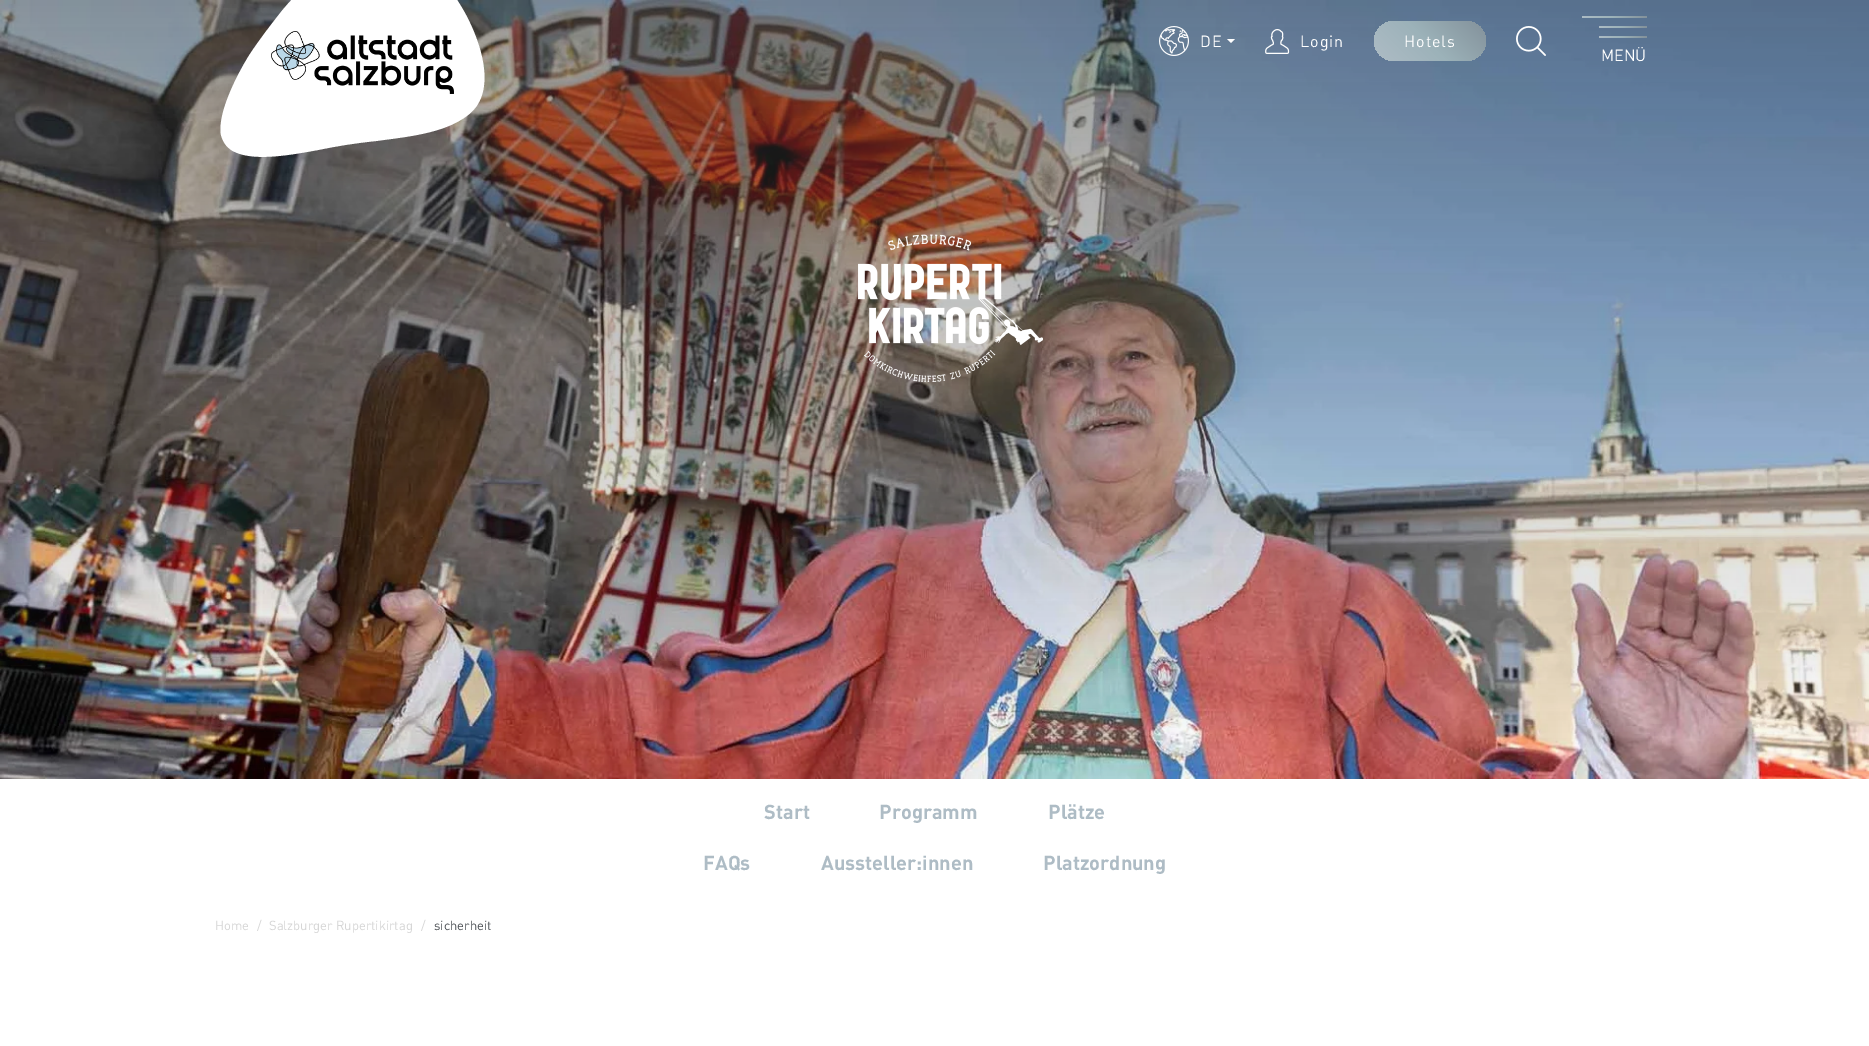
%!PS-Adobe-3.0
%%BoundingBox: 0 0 1869 1046
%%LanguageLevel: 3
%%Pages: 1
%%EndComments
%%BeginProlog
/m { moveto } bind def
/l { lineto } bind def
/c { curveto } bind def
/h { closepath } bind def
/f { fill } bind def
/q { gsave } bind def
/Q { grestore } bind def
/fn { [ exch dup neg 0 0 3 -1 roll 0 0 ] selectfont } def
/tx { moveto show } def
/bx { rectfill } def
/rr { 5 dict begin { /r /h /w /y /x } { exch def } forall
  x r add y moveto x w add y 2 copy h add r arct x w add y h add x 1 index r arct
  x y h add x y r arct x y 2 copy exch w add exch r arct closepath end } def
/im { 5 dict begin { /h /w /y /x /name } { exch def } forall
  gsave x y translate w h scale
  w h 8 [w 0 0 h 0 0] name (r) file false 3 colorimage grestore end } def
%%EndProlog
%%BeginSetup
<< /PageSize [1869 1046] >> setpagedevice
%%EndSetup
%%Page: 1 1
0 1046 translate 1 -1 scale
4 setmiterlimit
1 setgray
0 0 1869 1046 bx
(image4.raw) 0 0 1869 779 im
281 12 m 270 26 260 39 250 54 c 238 73 217 113 221 135 c 223 143 228 149 235 152 c 256 162 295 154 318 150 c 337 146 356 143 376 141 c 404 137 444 134 468 115 c 501 90 477 31 459 3 c 451 -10 442 -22 430 -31 c 412 -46 390 -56 367 -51 c 360 -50 353 -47 347 -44 c 321 -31 299 -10 281 12 c h eofill
(image0.raw) 271 31 183 63 im
(image1.raw) 1159 26 30 30 im
/DIN-Regular 16 fn
1200 47 m 1 0 (DE) ashow
1227 39 m 1235 39 l 1231 43 l h f
(image2.raw) 1265 29 25 25 im
1300 47 m 1 0 (Login) ashow
q 1374 21 112 40 20 rr clip newpath
<< /ShadingType 2 /ColorSpace /DeviceRGB /Coords [1392 79 1468 3] /Extend [true true] /Function << /FunctionType 3 /Domain [0 1] /Functions [<< /FunctionType 2 /Domain [0 1] /C0 [0.682 0.737 0.773] /C1 [0.612 0.698 0.725] /N 1 >> << /FunctionType 2 /Domain [0 1] /C0 [0.612 0.698 0.725] /C1 [0.514 0.573 0.608] /N 1 >> << /FunctionType 2 /Domain [0 1] /C0 [0.514 0.573 0.608] /C1 [0.514 0.573 0.608] /N 1 >>] /Bounds [0.48 0.99] /Encode [0 1 0 1 0 1] >> >> shfill Q
1404 47 m 1 0 (Hotels) ashow
(image3.raw) 1516 26 30 30 im
q 1582 16 m 1647 16 l 1647 18 l 1582 18 l h clip newpath
<< /ShadingType 2 /ColorSpace /DeviceRGB /Coords [1597 34 1631 0.2] /Extend [true true] /Function << /FunctionType 3 /Domain [0 1] /Functions [<< /FunctionType 2 /Domain [0 1] /C0 [0.682 0.737 0.773] /C1 [0.612 0.698 0.725] /N 1 >> << /FunctionType 2 /Domain [0 1] /C0 [0.612 0.698 0.725] /C1 [0.514 0.573 0.608] /N 1 >> << /FunctionType 2 /Domain [0 1] /C0 [0.514 0.573 0.608] /C1 [0.514 0.573 0.608] /N 1 >>] /Bounds [0.48 0.99] /Encode [0 1 0 1 0 1] >> >> shfill Q
q 1599 26 m 1647 26 l 1647 28 l 1599 28 l h clip newpath
<< /ShadingType 2 /ColorSpace /DeviceRGB /Coords [1610 40 1635 15] /Extend [true true] /Function << /FunctionType 3 /Domain [0 1] /Functions [<< /FunctionType 2 /Domain [0 1] /C0 [0.682 0.737 0.773] /C1 [0.612 0.698 0.725] /N 1 >> << /FunctionType 2 /Domain [0 1] /C0 [0.612 0.698 0.725] /C1 [0.514 0.573 0.608] /N 1 >> << /FunctionType 2 /Domain [0 1] /C0 [0.514 0.573 0.608] /C1 [0.514 0.573 0.608] /N 1 >>] /Bounds [0.48 0.99] /Encode [0 1 0 1 0 1] >> >> shfill Q
q 1599 36 m 1647 36 l 1647 38 l 1599 38 l h clip newpath
<< /ShadingType 2 /ColorSpace /DeviceRGB /Coords [1610 50 1635 25] /Extend [true true] /Function << /FunctionType 3 /Domain [0 1] /Functions [<< /FunctionType 2 /Domain [0 1] /C0 [0.682 0.737 0.773] /C1 [0.612 0.698 0.725] /N 1 >> << /FunctionType 2 /Domain [0 1] /C0 [0.612 0.698 0.725] /C1 [0.514 0.573 0.608] /N 1 >> << /FunctionType 2 /Domain [0 1] /C0 [0.514 0.573 0.608] /C1 [0.514 0.573 0.608] /N 1 >>] /Bounds [0.48 0.99] /Encode [0 1 0 1 0 1] >> >> shfill Q
(MENÜ) 1601 61 tx
(image5.raw) 858 234 185 148 im
/DIN-Bold 20 fn
0.682 0.737 0.773 setrgbcolor
(Start) 764 819 tx
(Programm) 879 819 tx
(Plätze) 1048 819 tx
(FAQs) 703 870 tx
(Aussteller:innen) 821 870 tx
(Platzordnung) 1043 870 tx
/DIN-Regular 13 fn
0.839 setgray
(Home) 215 930 tx
(/) 257 930 tx
(Salzburger Rupertikirtag) 269 930 tx
(/) 421 930 tx
0.302 0.318 0.337 setrgbcolor
(sicherheit) 434 930 tx
showpage
%%EOF
